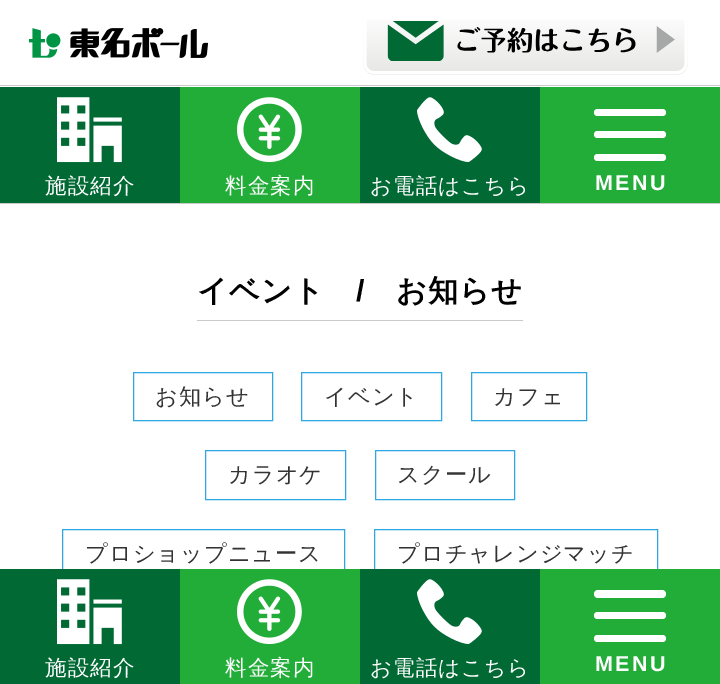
%!PS-Adobe-3.0
%%BoundingBox: 0 0 720 684
%%LanguageLevel: 3
%%Pages: 1
%%EndComments
%%BeginProlog
/m { moveto } bind def
/f { fill } bind def
/fn { [ exch dup neg 0 0 3 -1 roll 0 0 ] selectfont } def
/bx { rectfill } def
/rr { 5 dict begin { /r /h /w /y /x } { exch def } forall
  x r add y moveto x w add y 2 copy h add r arct x w add y h add x 1 index r arct
  x y h add x y r arct x y 2 copy exch w add exch r arct closepath end } def
/im { 5 dict begin { /h /w /y /x /name } { exch def } forall
  gsave x y translate w h scale
  w h 8 [w 0 0 h 0 0] name (r) file false 3 colorimage grestore end } def
%%EndProlog
%%BeginSetup
<< /PageSize [720 684] >> setpagedevice
%%EndSetup
%%Page: 1 1
0 684 translate 1 -1 scale
4 setmiterlimit
1 setgray
0 0 720 684 bx
0.792 setgray
0 203 720 1 bx
0 85 720 1 bx
(image0.raw) 29 28 179 30 im
(image1.raw) 363 20 325 55 im
0 0.412 0.204 setrgbcolor
0 87 180 116 bx
(image2.raw) 57 97 65 66 im
/WenQuanYiZenHei-Medium 21.5 fn
1 setgray
45 193 m 1 0 (施設紹介) ashow
0.133 0.675 0.22 setrgbcolor
180 87 180 116 bx
(image3.raw) 237 97 65 66 im
1 setgray
225 193 m 1 0 (料金案内) ashow
0 0.412 0.204 setrgbcolor
360 87 180 116 bx
(image4.raw) 417 97 65 65 im
1 setgray
370 193 m 1 0 (お電話はこちら) ashow
0.133 0.675 0.22 setrgbcolor
540 87 180 116 bx
1 setgray
594 109 72 7 3.5 rr f
594 131 72 7 3.5 rr f
594 154 72 7 3.5 rr f
/LiberationSans-Bold 21.5 fn
595 190 m 2.5 0 (MENU) ashow
0.792 setgray
197 320 326 1 bx
/WenQuanYiZenHei-Bold 30.25 fn
0 setgray
197 301 m 1 0 (イベント) ashow
/LiberationSans-Bold 30.25 fn
356 301 m 1 0 (/) ashow
/WenQuanYiZenHei-Bold 30.25 fn
396 301 m 1 0 (お知らせ) ashow
0.176 0.659 0.886 setrgbcolor
133.5 372.5 139 48 rectstroke
/WenQuanYiZenHei-Medium 22.25 fn
0.2 setgray
155 404 m 1 0 (お知らせ) ashow
0.176 0.659 0.886 setrgbcolor
301.5 372.5 140 48 rectstroke
0.2 setgray
324 404 m 1 0 (イベント) ashow
0.176 0.659 0.886 setrgbcolor
471.5 372.5 115 48 rectstroke
0.2 setgray
493 404 m 1 0 (カフェ) ashow
0.176 0.659 0.886 setrgbcolor
205.5 450.5 140 49 rectstroke
0.2 setgray
228 482 m 1 0 (カラオケ) ashow
0.176 0.659 0.886 setrgbcolor
375.5 450.5 139 49 rectstroke
0.2 setgray
397 482 m 1 0 (スクール) ashow
0.176 0.659 0.886 setrgbcolor
62.5 529.5 282 49 rectstroke
0.2 setgray
85 561 m 1 0 (プロショップニュース) ashow
0.176 0.659 0.886 setrgbcolor
374.5 529.5 283 49 rectstroke
0.2 setgray
397 561 m 1 0 (プロチャレンジマッチ) ashow
0 0.412 0.204 setrgbcolor
0 569 180 115 bx
(image2.raw) 57 579 65 66 im
/WenQuanYiZenHei-Medium 21.5 fn
1 setgray
45 675 m 1 0 (施設紹介) ashow
0.133 0.675 0.22 setrgbcolor
180 569 180 115 bx
(image3.raw) 237 579 65 66 im
1 setgray
225 675 m 1 0 (料金案内) ashow
0 0.412 0.204 setrgbcolor
360 569 180 115 bx
(image4.raw) 417 579 65 65 im
1 setgray
370 675 m 1 0 (お電話はこちら) ashow
0.133 0.675 0.22 setrgbcolor
540 569 180 115 bx
1 setgray
594 590 72 8 4 rr f
594 612 72 7 3.5 rr f
594 635 72 7 3.5 rr f
/LiberationSans-Bold 21.5 fn
595 671 m 2.5 0 (MENU) ashow
showpage
%%EOF
